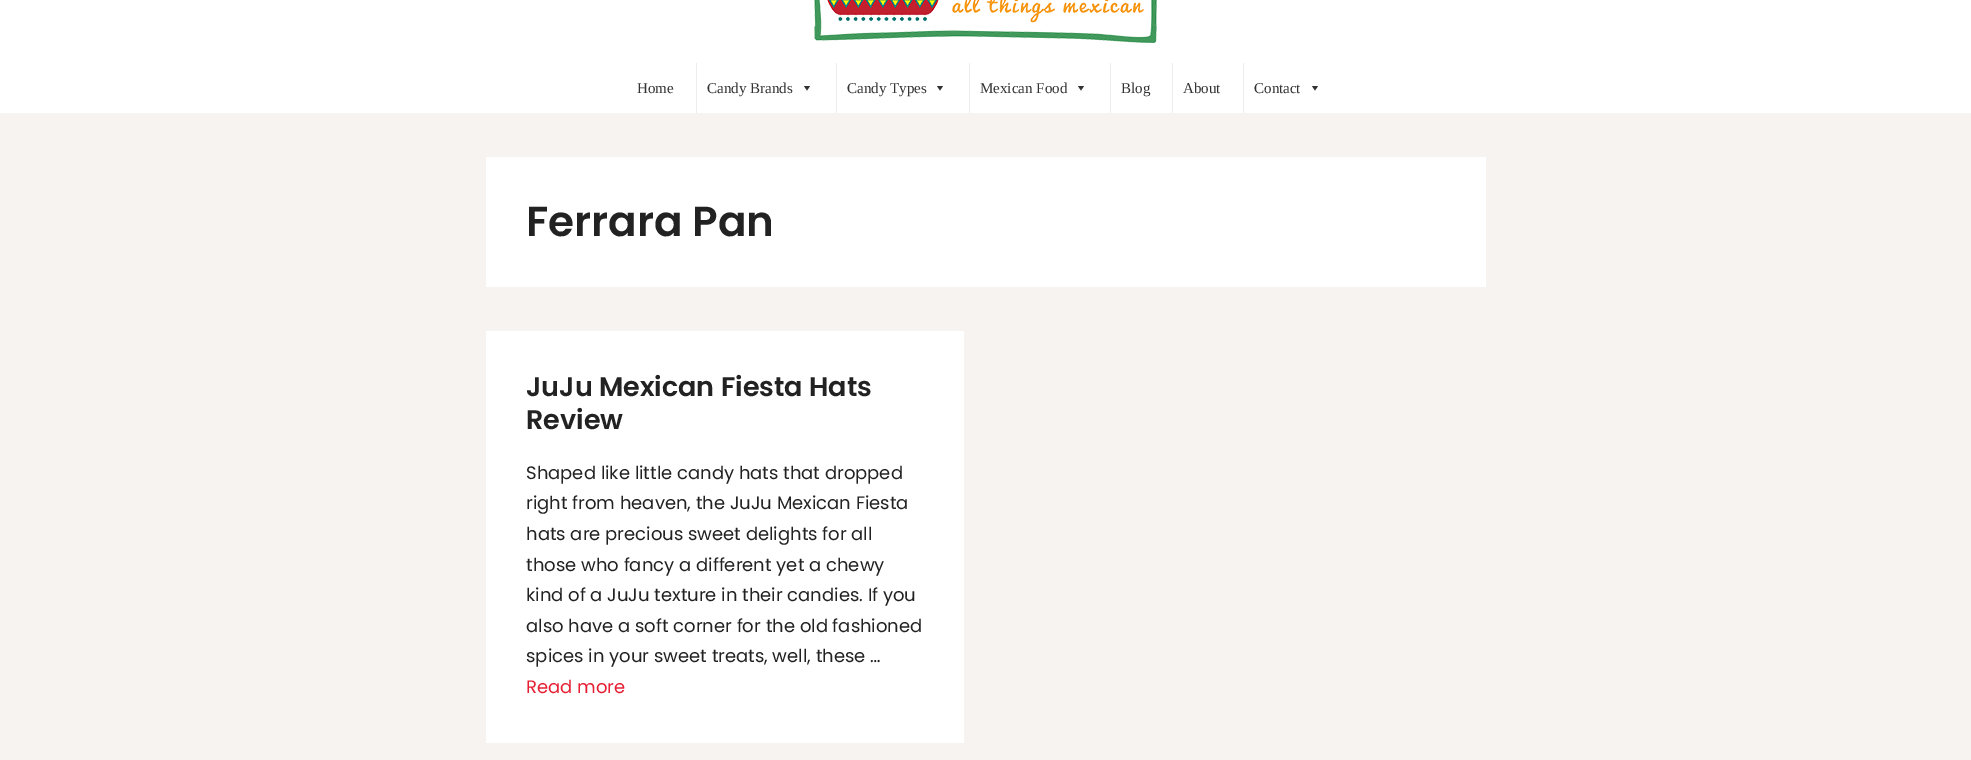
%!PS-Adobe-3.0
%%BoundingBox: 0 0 1971 760
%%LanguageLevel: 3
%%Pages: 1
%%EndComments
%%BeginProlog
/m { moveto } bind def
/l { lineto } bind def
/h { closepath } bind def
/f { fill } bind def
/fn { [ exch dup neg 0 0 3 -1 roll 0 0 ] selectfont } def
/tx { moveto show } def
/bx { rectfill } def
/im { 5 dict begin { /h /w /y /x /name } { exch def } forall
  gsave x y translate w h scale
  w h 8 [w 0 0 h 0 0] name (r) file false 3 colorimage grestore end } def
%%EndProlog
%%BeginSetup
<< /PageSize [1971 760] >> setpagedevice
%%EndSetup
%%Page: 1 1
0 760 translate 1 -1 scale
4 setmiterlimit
0.969 0.953 0.941 setrgbcolor
0 0 1971 760 bx
1 setgray
0 0 1971 113 bx
(image0.raw) 814 0 343 43 im
/LiberationSerif-Regular 15 fn
0.2 setgray
(Home) 637 93 tx
0.929 setgray
696 63 1 50 bx
0.2 setgray
(Candy Brands) 707 93 tx
810 86 m 807 90.5 l 804 86 l h f
0.929 setgray
836 63 1 50 bx
0.2 setgray
(Candy Types) 847 93 tx
943 86 m 940 90.5 l 937 86 l h f
0.929 setgray
969 63 1 50 bx
0.2 setgray
(Mexican Food) 980 93 tx
1084 86 m 1081 90.5 l 1078 86 l h f
0.929 setgray
1110 63 1 50 bx
0.2 setgray
(Blog) 1121 93 tx
0.929 setgray
1172 63 1 50 bx
0.2 setgray
(About) 1183 93 tx
0.929 setgray
1243 63 1 50 bx
0.2 setgray
(Contact) 1254 93 tx
1318 86 m 1315 90.5 l 1312 86 l h f
1 setgray
486 157 1000 130 bx
/Poppins-SemiBold 42 fn
0.133 setgray
(Ferrara Pan) 526 236 tx
1 setgray
486 331 478 412 bx
/Poppins-SemiBold 27 fn
0.133 setgray
(JuJu Mexican Fiesta Hats) 526 396 tx
(Review) 526 429 tx
/Poppins-Regular 18 fn
(Shaped like little candy hats that dropped) 526 479 tx
(right from heaven, the JuJu Mexican Fiesta) 526 509 tx
(hats are precious sweet delights for all) 526 540 tx
(those who fancy a different yet a chewy) 526 571 tx
(kind of a JuJu texture in their candies. If you) 526 601 tx
(also have a soft corner for the old fashioned) 526 632 tx
(spices in your sweet treats, well, these …) 526 662 tx
0.902 0.118 0.196 setrgbcolor
(Read more) 526 693 tx
showpage
%%EOF
